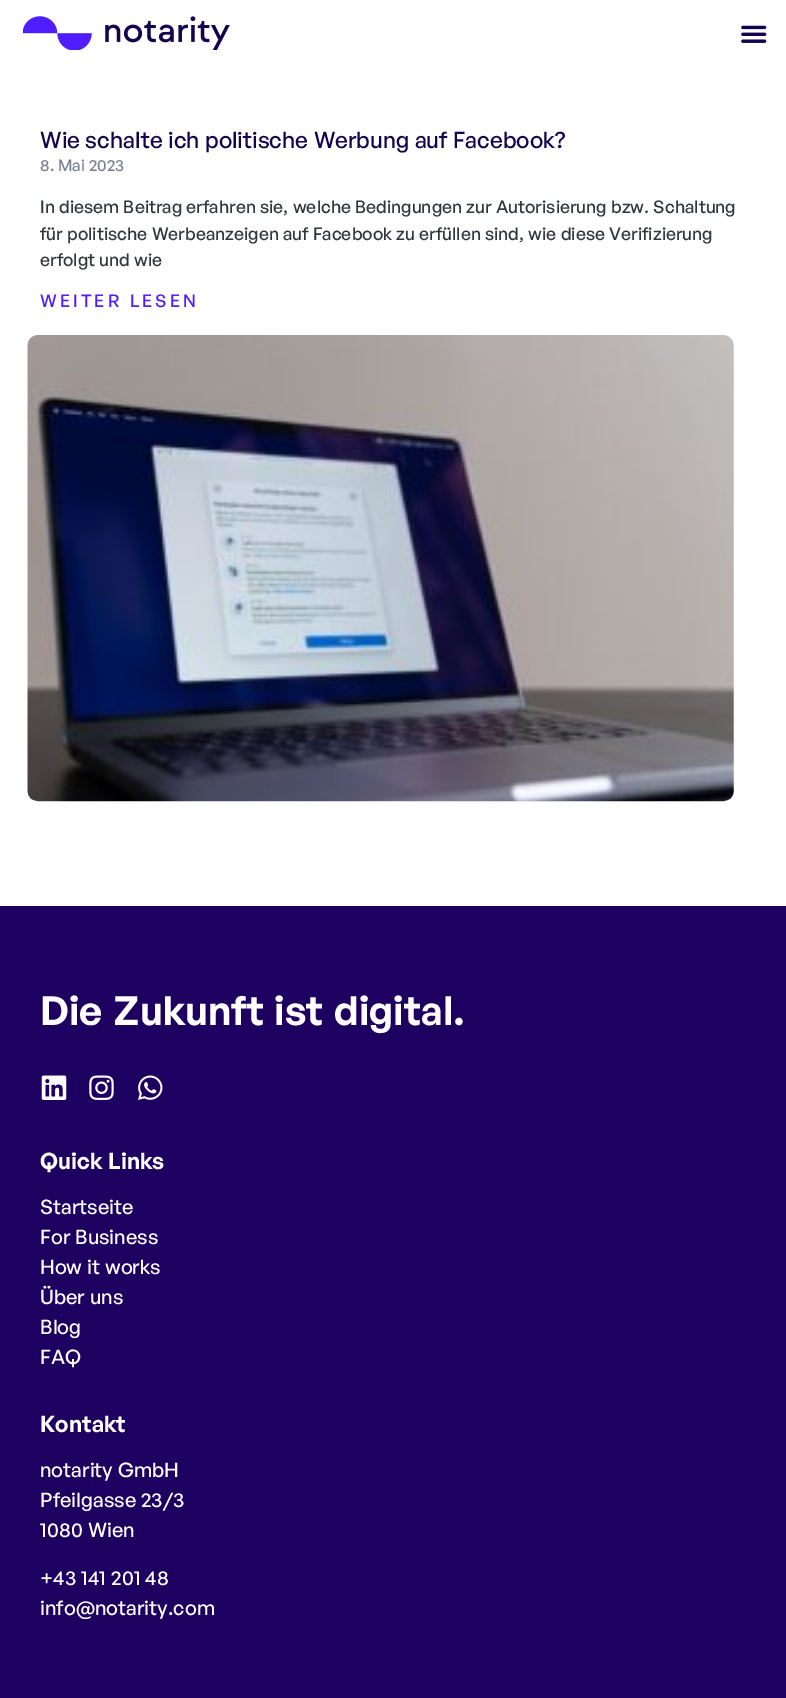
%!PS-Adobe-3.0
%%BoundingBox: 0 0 786 1698
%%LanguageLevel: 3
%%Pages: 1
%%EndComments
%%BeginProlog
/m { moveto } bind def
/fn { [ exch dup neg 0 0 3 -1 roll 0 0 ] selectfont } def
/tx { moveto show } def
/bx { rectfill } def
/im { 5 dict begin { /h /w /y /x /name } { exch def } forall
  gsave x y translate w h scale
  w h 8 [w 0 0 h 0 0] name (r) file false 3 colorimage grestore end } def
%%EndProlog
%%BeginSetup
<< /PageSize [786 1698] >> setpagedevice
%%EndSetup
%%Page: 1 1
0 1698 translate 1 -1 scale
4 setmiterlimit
1 setgray
0 0 786 1698 bx
(image0.raw) 23 16 207 34 im
(image1.raw) 741 25 26 18 im
/GeneralSans-Medium 22.5 fn
0.075 0.016 0.31 setrgbcolor
(Wie schalte ich politische Werbung auf Facebook?) 40 148 tx
/GeneralSans-Medium 16 fn
0.475 0.502 0.573 setrgbcolor
(8. Mai 2023) 40 171 tx
/GeneralSans-Medium 17.5 fn
0.196 0.212 0.243 setrgbcolor
(In diesem Beitrag erfahren sie, welche Bedingungen zur Autorisierung bzw. Schaltung) 40 213 tx
(für politische Werbeanzeigen auf Facebook zu erfüllen sind, wie diese Verifizierung) 40 240 tx
(erfolgt und wie) 40 266 tx
0.314 0.114 1 setrgbcolor
40 307 m 3.1 0 (WEITER LESEN) ashow
(image2.raw) 27 335 707 467 im
0.118 0 0.376 setrgbcolor
0 906 786 792 bx
/GeneralSans-SemiBold 40 fn
1 setgray
(Die Zukunft ist digital.) 40 1025 tx
(image3.raw) 41 1075 26 25 im
(image4.raw) 89 1075 25 25 im
(image5.raw) 138 1075 25 25 im
/GeneralSans-SemiBold 22.5 fn
(Quick Links) 40 1169 tx
/GeneralSans-Medium 20 fn
(Startseite) 40 1214 tx
(For Business) 40 1244 tx
(How it works) 40 1274 tx
(Über uns) 40 1304 tx
(Blog) 40 1334 tx
(FAQ) 40 1364 tx
/GeneralSans-SemiBold 22.5 fn
(Kontakt) 40 1432 tx
/GeneralSans-Medium 20 fn
(notarity GmbH) 40 1477 tx
(Pfeilgasse 23/3) 40 1507 tx
(1080 Wien) 40 1537 tx
(+43 141 201 48) 40 1585 tx
(info@notarity.com) 40 1615 tx
showpage
%%EOF
